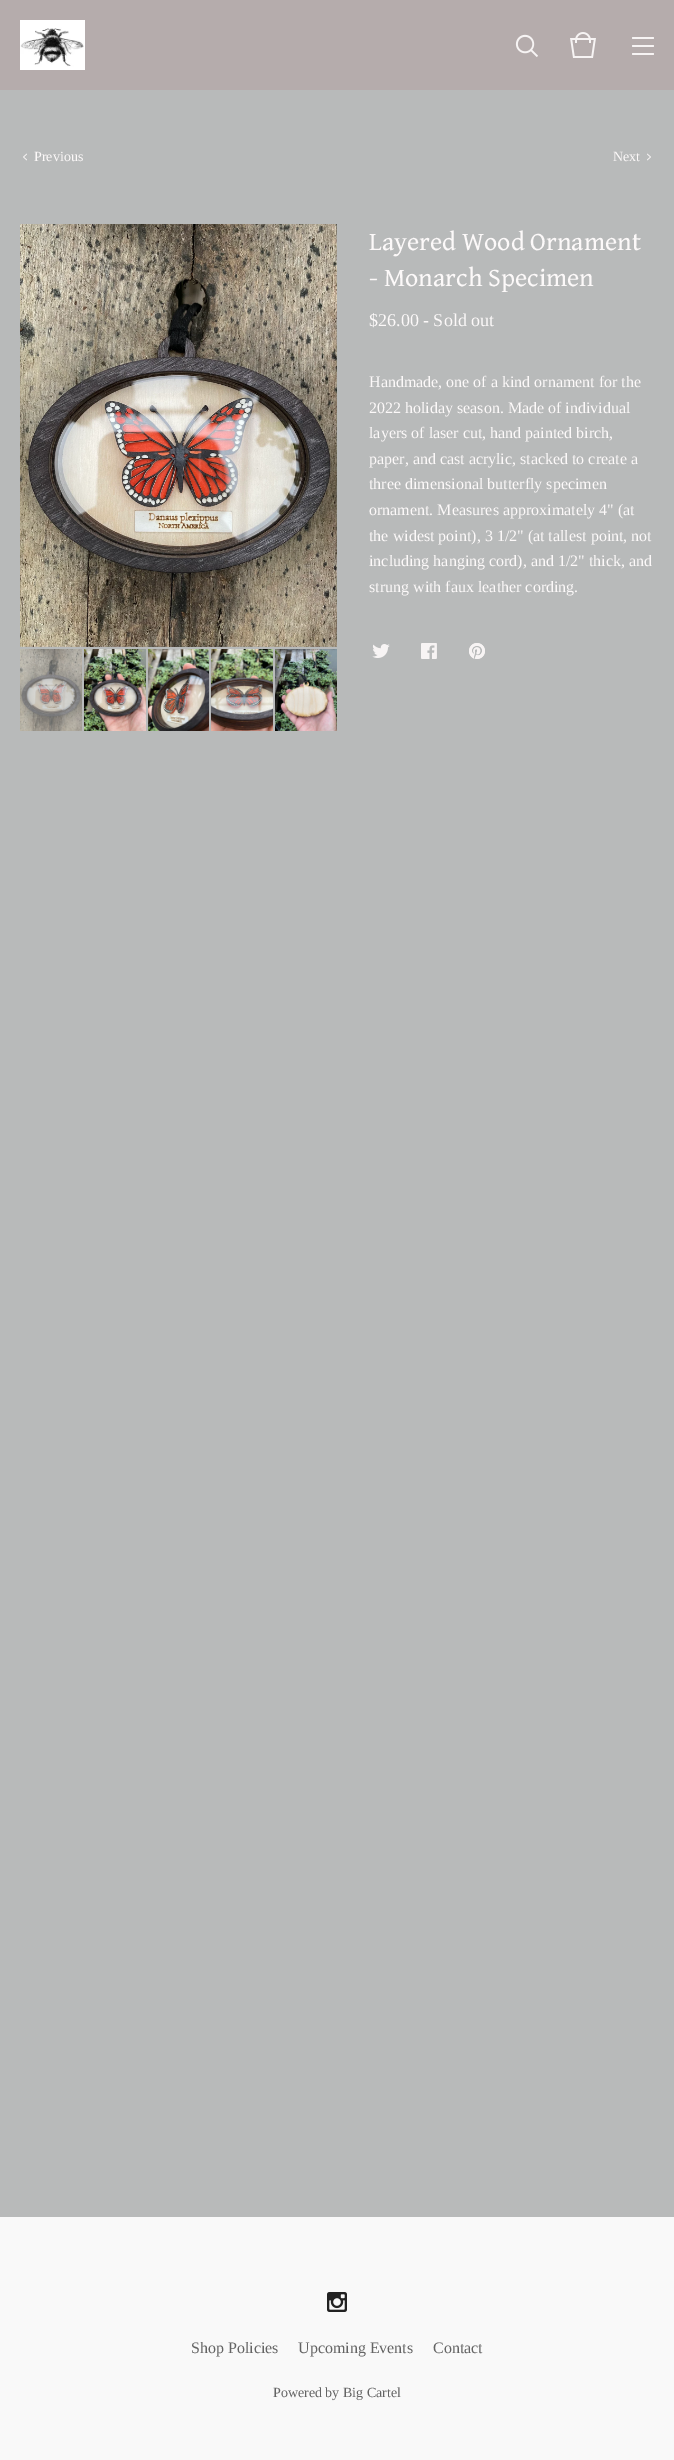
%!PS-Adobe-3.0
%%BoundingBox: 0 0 674 2460
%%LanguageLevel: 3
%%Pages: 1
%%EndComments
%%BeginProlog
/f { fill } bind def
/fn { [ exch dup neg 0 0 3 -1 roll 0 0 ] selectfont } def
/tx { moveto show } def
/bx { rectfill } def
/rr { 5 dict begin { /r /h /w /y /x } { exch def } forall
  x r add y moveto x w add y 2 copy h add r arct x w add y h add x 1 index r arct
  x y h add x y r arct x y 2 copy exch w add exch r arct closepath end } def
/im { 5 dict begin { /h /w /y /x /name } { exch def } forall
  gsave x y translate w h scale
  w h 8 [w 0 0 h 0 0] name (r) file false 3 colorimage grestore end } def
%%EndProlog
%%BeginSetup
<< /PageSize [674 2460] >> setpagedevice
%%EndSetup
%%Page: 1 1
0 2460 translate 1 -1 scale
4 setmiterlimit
0.722 0.729 0.729 setrgbcolor
0 0 674 2460 bx
0.71 0.675 0.675 setrgbcolor
0 0 674 90 bx
(image0.raw) 20 20 65 50 im
(image1.raw) 515 34 23 23 im
(image2.raw) 570 32 26 26 im
0.969 0.957 0.957 setrgbcolor
632 37 22 2 1 rr f
632 45 22 2 1 rr f
632 53 22 2 1 rr f
(image3.raw) 23 153 4 8 im
/LiberationSerif-Regular 14 fn
0.988 0.976 0.976 setrgbcolor
(Previous) 34 161 tx
(Next) 613 161 tx
(image4.raw) 647 153 4 8 im
(image5.raw) 20 224 317 423 im
(image6.raw) 20 649 62 82 im
(image7.raw) 84 649 62 82 im
(image8.raw) 148 649 61 82 im
(image9.raw) 211 649 62 82 im
(image10.raw) 275 649 62 82 im
/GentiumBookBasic-Regular 26 fn
(Layered Wood Ornament) 369 250 tx
(- Monarch Specimen) 369 286 tx
/LiberationSerif-Regular 18 fn
($26.00 - Sold out) 369 326 tx
/LiberationSerif-Regular 16 fn
(Handmade, one of a kind ornament for the) 369 387 tx
(2022 holiday season. Made of individual) 369 413 tx
(layers of laser cut, hand painted birch,) 369 438 tx
(paper, and cast acrylic, stacked to create a) 369 464 tx
(three dimensional butterfly specimen) 369 489 tx
(ornament. Measures approximately 4" \(at) 369 515 tx
(the widest point\), 3 1/2" \(at tallest point, not) 369 541 tx
(including hanging cord\), and 1/2" thick, and) 369 566 tx
(strung with faux leather cording.) 369 592 tx
(image11.raw) 372 644 18 14 im
(image12.raw) 421 643 16 16 im
(image13.raw) 469 643 16 16 im
0.976 setgray
0 2217 674 243 bx
(image14.raw) 327 2292 20 20 im
0.392 setgray
(Shop Policies) 191 2353 tx
(Upcoming Events) 298 2353 tx
(Contact) 433 2353 tx
/LiberationSerif-Regular 14 fn
(Powered by Big Cartel) 273 2397 tx
showpage
%%EOF
